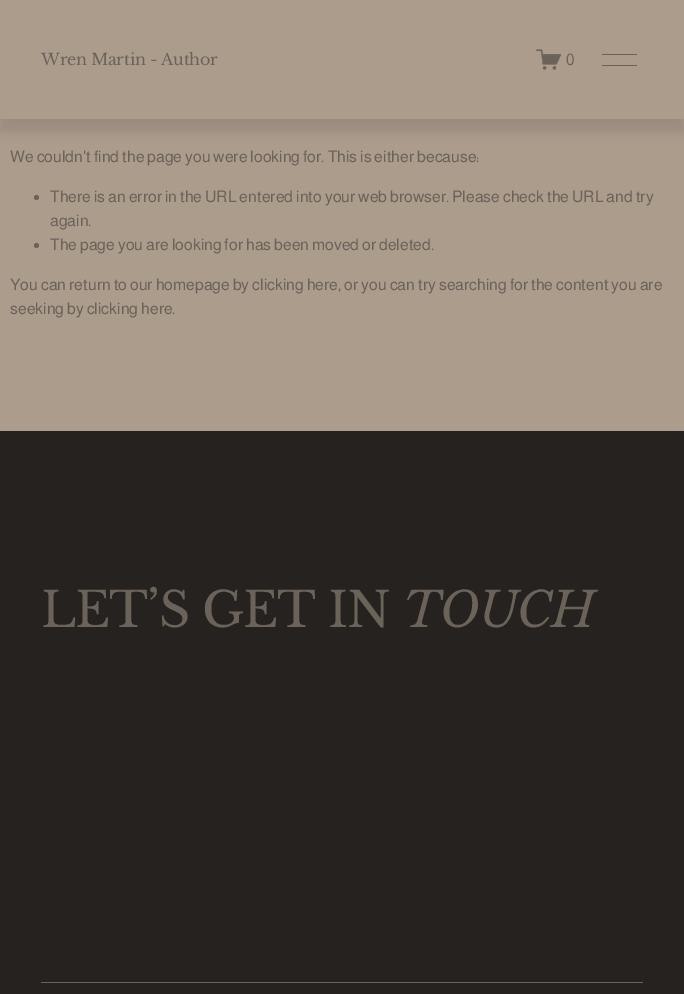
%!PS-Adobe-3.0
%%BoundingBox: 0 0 684 994
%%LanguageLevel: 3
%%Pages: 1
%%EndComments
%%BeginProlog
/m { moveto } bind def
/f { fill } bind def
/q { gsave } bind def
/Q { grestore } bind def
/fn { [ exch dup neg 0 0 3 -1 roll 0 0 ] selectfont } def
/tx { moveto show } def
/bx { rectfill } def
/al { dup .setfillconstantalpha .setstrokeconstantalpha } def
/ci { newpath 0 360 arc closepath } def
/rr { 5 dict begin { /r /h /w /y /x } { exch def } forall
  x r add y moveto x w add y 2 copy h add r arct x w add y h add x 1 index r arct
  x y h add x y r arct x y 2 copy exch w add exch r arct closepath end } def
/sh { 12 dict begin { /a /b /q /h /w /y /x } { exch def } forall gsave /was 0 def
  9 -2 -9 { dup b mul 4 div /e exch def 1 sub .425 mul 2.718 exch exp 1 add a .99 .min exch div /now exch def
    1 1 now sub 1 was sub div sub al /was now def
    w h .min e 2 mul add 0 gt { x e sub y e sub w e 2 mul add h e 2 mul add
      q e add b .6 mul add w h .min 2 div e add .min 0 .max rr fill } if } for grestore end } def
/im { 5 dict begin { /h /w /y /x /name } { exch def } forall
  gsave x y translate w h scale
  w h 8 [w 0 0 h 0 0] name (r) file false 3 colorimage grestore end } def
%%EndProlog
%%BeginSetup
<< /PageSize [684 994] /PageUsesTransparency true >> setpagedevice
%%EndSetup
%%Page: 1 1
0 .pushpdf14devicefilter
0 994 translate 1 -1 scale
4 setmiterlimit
0.675 0.612 0.549 setrgbcolor
0 0 684 994 bx
q
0 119 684 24 rectclip
0.596 0.541 0.486 setrgbcolor
0 12 684 119 0 6 1 sh
Q
/LibreBaskerville-Regular 16 fn
0.42 0.388 0.353 setrgbcolor
41 65 m -0.3 0 (Wren Martin - Author) ashow
(image0.raw) 536 49 25 21 im
/Almarai-Regular 16 fn
(0) 566 65 tx
602 54 35 1 bx
602 65 35 1 bx
(We couldn't find the page you were looking for. This is either because:) 10 162 tx
36.5 197.5 2.5 ci f
(There is an error in the URL entered into your web browser. Please check the URL and try) 50 202 tx
(again.) 50 226 tx
36.5 245.5 2.5 ci f
(The page you are looking for has been moved or deleted.) 50 250 tx
(You can return to our homepage by clicking here, or you can try searching for the content you are) 10 290 tx
(seeking by clicking here.) 10 314 tx
0.145 0.133 0.122 setrgbcolor
0 431 684 563 bx
/LibreBaskerville-Regular 48.5 fn
0.42 0.388 0.353 setrgbcolor
41 627 m -1 0 (LET’S GET IN) ashow
/LibreBaskerville-Italic 48.5 fn
403 627 m -1 0 (TOUCH) ashow
41 982 602 1 bx
.poppdf14devicefilter showpage
%%EOF
